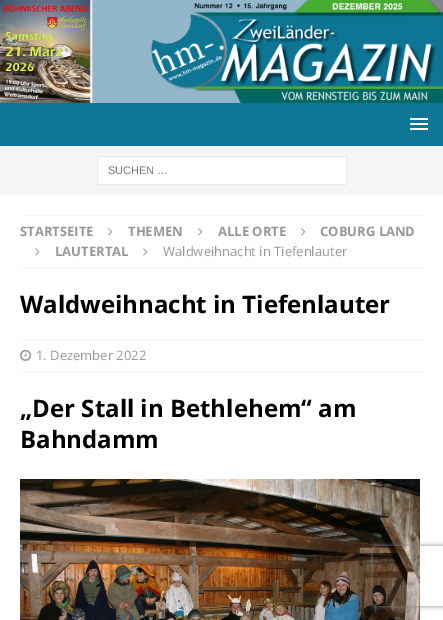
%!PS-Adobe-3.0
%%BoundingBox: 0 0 443 620
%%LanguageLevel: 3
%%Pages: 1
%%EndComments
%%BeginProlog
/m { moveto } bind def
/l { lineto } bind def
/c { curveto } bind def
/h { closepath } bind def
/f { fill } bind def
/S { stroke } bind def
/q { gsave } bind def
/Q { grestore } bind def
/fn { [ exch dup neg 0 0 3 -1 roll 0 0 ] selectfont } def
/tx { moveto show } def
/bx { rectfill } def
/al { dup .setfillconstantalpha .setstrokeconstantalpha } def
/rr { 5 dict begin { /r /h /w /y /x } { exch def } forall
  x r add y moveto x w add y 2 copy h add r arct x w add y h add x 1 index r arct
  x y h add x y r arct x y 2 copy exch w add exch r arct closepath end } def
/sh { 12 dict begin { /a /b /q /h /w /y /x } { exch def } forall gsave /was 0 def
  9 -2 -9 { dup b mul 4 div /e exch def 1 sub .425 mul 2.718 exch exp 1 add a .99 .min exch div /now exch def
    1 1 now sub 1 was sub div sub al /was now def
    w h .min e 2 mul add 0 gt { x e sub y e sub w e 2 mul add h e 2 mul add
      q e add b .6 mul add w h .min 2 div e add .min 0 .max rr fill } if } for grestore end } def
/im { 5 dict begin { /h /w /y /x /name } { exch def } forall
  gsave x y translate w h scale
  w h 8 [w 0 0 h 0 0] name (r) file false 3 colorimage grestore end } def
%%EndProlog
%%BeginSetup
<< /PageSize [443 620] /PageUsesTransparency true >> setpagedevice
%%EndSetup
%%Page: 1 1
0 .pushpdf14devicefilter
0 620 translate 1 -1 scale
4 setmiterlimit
0.51 0.525 0.549 setrgbcolor
0 0 443 620 bx
(image0.raw) 0 0 443 103 im
0.055 0.459 0.58 setrgbcolor
0 103 443 43 bx
1 setgray
410 118 18 2 1 rr f
410 123 18 2 1 rr f
410 128 18 2 1 rr f
0.961 setgray
0 146 443 49 bx
1 setgray
97.5 156.5 m 346.5 156.5 l 346.5 184.5 l 97.5 184.5 l h q f Q
0.922 setgray
S
/LiberationSans-Regular 11 fn
0.459 setgray
(SUCHEN …) 108 174 tx
1 setgray
0 195 443 425 bx
0.922 setgray
[1 1] 0 setdash
20 215.5 m 423 215.5 l S
20 267.5 m 423 267.5 l S
/OpenSans-Bold 13 fn
0.592 setgray
(STARTSEITE) 20 236 tx
(image1.raw) 108 228 5 8 im
(THEMEN) 128 236 tx
(image1.raw) 198 228 5 8 im
(ALLE ORTE) 218 236 tx
(image1.raw) 301 228 5 8 im
(COBURG LAND) 320 236 tx
(image1.raw) 35 248 5 8 im
(LAUTERTAL) 55 256 tx
(image1.raw) 143 248 5 8 im
/OpenSans-Regular 13 fn
(Waldweihnacht in Tiefenlauter) 163 256 tx
/OpenSans-Bold 24 fn
0 setgray
(Waldweihnacht in Tiefenlauter) 20 313 tx
0.922 setgray
20 339.5 m 423 339.5 l S
20 371.5 m 423 371.5 l S
(image2.raw) 20 349 12 12 im
/OpenSans-Regular 13 fn
0.592 setgray
(1. Dezember 2022) 36 360 tx
/OpenSans-Bold 24 fn
0 setgray
(„Der Stall in Bethlehem“ am) 20 417 tx
(Bahndamm) 20 448 tx
(image3.raw) 20 479 400 141 im
q
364 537 m 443 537 l 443 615 l 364 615 l h 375 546 m 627 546 l 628 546 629 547 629 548 c 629 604 l 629 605 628 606 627 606 c 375 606 l 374 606 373 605 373 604 c 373 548 l 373 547 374 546 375 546 c h eoclip newpath
0.502 setgray
373 546 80 60 2 2.5 1 sh
Q
.poppdf14devicefilter showpage
%%EOF
